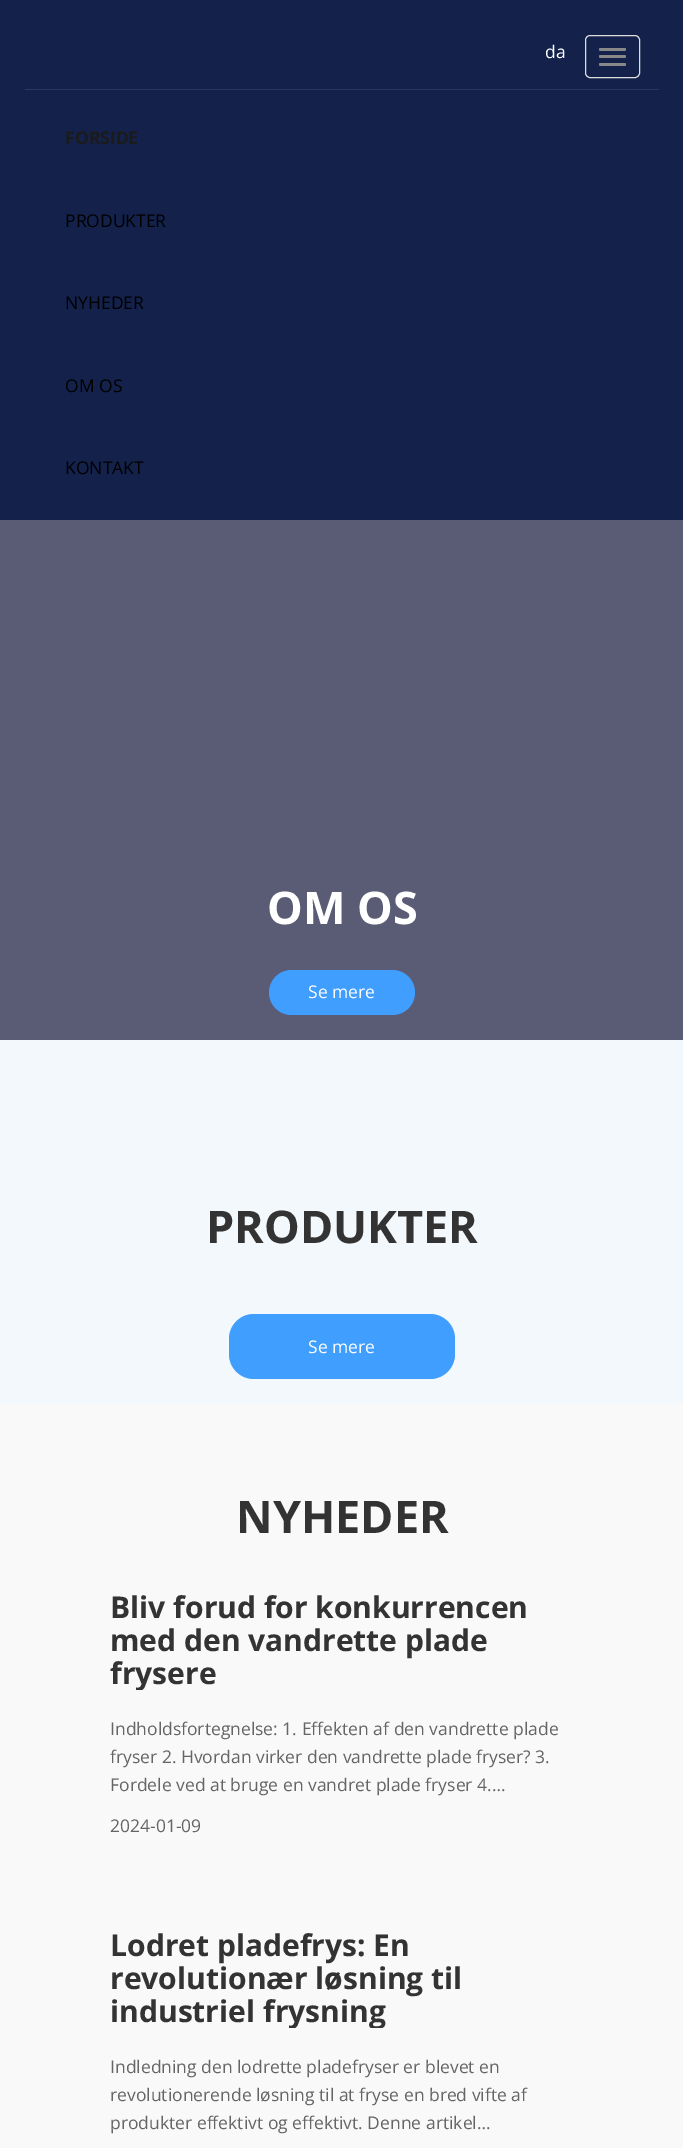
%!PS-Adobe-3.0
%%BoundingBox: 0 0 683 2148
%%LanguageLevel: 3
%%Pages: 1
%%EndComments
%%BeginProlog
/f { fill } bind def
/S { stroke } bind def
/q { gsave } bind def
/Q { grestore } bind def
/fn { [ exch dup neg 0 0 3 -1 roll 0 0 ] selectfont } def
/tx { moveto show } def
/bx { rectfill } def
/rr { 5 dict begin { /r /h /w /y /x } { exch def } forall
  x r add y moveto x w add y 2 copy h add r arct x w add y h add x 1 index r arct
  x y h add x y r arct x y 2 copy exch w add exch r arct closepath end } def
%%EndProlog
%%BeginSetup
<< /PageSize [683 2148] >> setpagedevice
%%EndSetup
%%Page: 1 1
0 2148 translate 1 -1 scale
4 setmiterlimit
0.949 0.973 0.988 setrgbcolor
0 0 683 2148 bx
0.075 0.129 0.294 setrgbcolor
0 0 683 520 bx
/OpenSans-Regular 17.5 fn
1 setgray
(da) 545 58 tx
0.867 setgray
585.5 35.5 54 42 4.5 rr S
0.533 setgray
599 48 27 3 1.5 rr f
599 55 27 3 1.5 rr f
599 63 27 3 1.5 rr f
0.169 0.216 0.365 setrgbcolor
25 89 634 1 bx
/OpenSans-Bold 17.5 fn
0.106 setgray
(FORSIDE) 65 144 tx
/OpenSans-Regular 17.5 fn
0 setgray
(PRODUKTER) 65 227 tx
(NYHEDER) 65 309 tx
(OM OS) 65 392 tx
(KONTAKT) 65 474 tx
0.353 0.357 0.459 setrgbcolor
0 520 683 520 bx
/OpenSans-Bold 45 fn
1 setgray
(OM OS) 267 924 tx
0.251 0.62 1 setrgbcolor
269 970 146 45 22.5 rr f
/OpenSans-Regular 17.5 fn
1 setgray
(Se mere) 308 998 tx
/OpenSans-Bold 45 fn
0.2 setgray
(PRODUKTER) 206 1243 tx
0.251 0.62 1 setrgbcolor
229 1314 226 65 25 rr f
/OpenSans-Regular 17.5 fn
1 setgray
(Se mere) 308 1353 tx
0.976 setgray
0 1404 683 744 bx
/OpenSans-Bold 45 fn
0.2 setgray
(NYHEDER) 236 1533 tx
/OpenSans-Bold 30 fn
(Bliv forud for konkurrencen) 110 1618 tx
(med den vandrette plade) 110 1651 tx
q
110 1591 464 99 rectclip
(frysere) 110 1684 tx
Q
/OpenSans-Regular 17.5 fn
0.396 setgray
(Indholdsfortegnelse: 1. Effekten af den vandrette plade) 110 1735 tx
(fryser 2. Hvordan virker den vandrette plade fryser? 3.) 110 1763 tx
(Fordele ved at bruge en vandret plade fryser 4.…) 110 1791 tx
(2024-01-09) 110 1832 tx
/OpenSans-Bold 30 fn
0.2 setgray
(Lodret pladefrys: En) 110 1956 tx
(revolutionær løsning til) 110 1989 tx
q
110 1929 464 99 rectclip
(industriel frysning) 110 2022 tx
Q
/OpenSans-Regular 17.5 fn
0.396 setgray
(Indledning den lodrette pladefryser er blevet en) 110 2073 tx
(revolutionerende løsning til at fryse en bred vifte af) 110 2101 tx
(produkter effektivt og effektivt. Denne artikel…) 110 2129 tx
showpage
%%EOF
